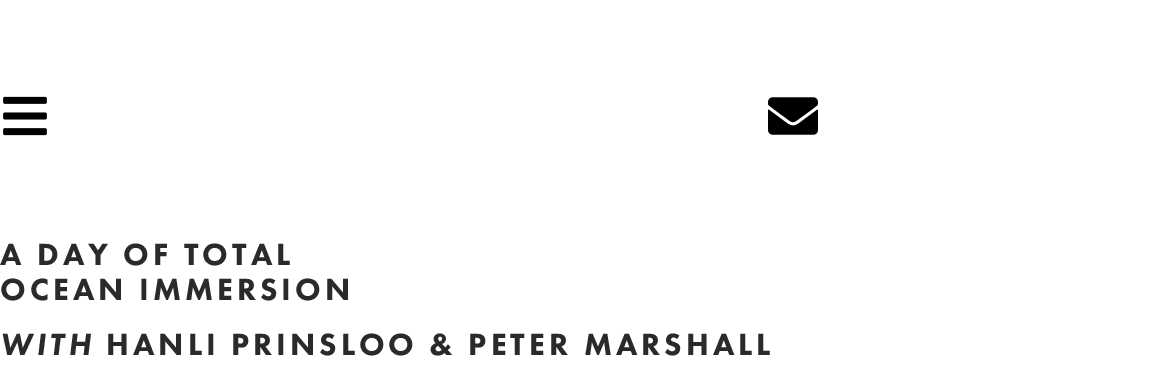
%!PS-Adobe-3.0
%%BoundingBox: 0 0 1152 380
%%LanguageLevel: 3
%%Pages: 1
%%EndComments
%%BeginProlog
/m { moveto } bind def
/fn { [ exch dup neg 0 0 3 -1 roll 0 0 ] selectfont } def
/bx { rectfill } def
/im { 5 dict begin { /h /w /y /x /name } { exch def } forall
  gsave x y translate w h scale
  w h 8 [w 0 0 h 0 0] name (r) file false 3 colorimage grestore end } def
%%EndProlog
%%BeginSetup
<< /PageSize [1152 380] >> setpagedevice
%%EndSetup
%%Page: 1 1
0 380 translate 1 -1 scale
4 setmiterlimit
1 setgray
0 0 1152 380 bx
(image0.raw) 3 96 44 40 im
(image1.raw) 768 97 50 38 im
/FuturaPT-Black 31.7 fn
0.165 setgray
0 265 m 4 0 (A DAY OF TOTAL) ashow
0 300 m 4 0 (OCEAN IMMERSION) ashow
/FuturaPT-BlackItalic 31.7 fn
0 355 m 4 0 (WITH) ashow
/FuturaPT-Black 31.7 fn
106 355 m 4 0 (HANLI PRINSLOO & PETER MARSHALL) ashow
showpage
%%EOF
